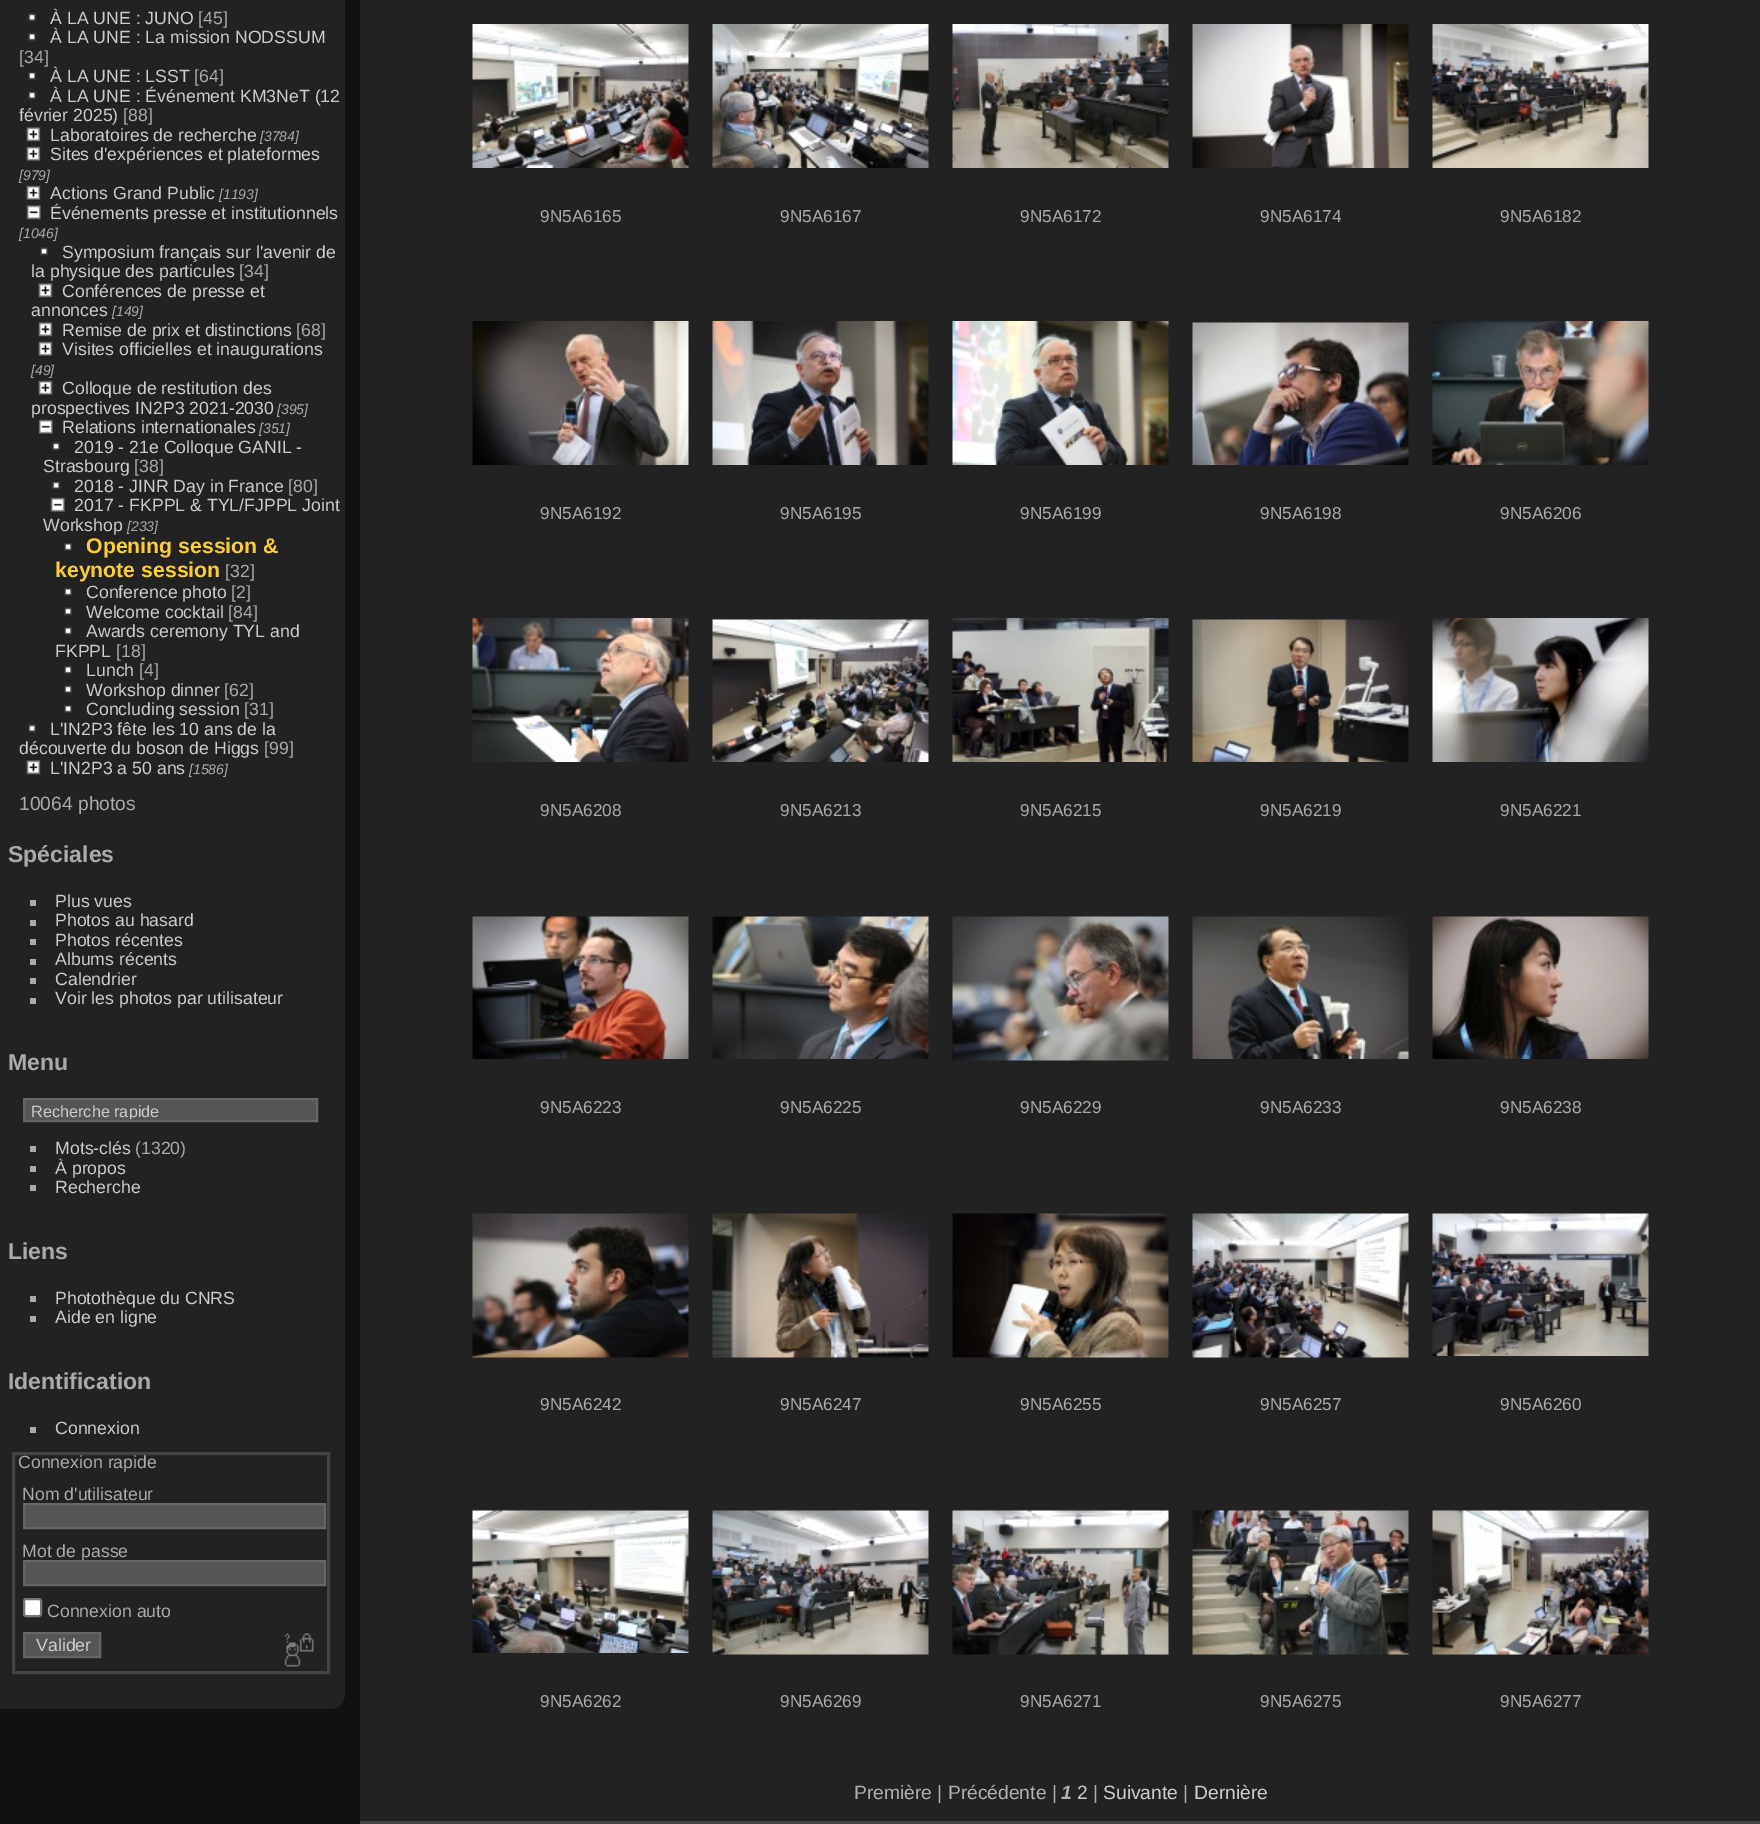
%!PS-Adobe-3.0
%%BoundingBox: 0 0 1760 1824
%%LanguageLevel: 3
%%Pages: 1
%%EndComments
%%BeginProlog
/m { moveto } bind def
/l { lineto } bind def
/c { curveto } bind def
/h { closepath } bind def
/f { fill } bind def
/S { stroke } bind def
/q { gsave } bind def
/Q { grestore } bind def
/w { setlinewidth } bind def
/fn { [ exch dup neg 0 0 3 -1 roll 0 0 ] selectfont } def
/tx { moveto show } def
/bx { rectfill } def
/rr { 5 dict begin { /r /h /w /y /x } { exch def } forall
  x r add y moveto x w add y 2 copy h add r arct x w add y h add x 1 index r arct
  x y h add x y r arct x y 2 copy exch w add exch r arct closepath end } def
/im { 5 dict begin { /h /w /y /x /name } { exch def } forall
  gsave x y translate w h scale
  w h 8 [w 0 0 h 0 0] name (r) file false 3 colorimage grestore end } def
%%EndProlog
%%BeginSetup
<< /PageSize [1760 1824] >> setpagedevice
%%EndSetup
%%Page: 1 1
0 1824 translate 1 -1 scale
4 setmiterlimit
0.067 setgray
0 0 1760 1824 bx
0.133 setgray
0 -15 m 330 -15 l 338.5 -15 345 -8.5 345 0 c 345 1694 l 345 1702.5 338.5 1709 330 1709 c 0 1709 l h f
(image0.raw) 28 13 8 9 im
/LiberationSans-Regular 17.7 fn
0.8 setgray
(À LA UNE : JUNO) 50 24 tx
0.667 setgray
([45]) 198 24 tx
(image1.raw) 28 33 8 8 im
0.8 setgray
(À LA UNE : La mission NODSSUM) 50 43 tx
0.667 setgray
([34]) 19 63 tx
(image1.raw) 28 72 8 8 im
0.8 setgray
(À LA UNE : LSST) 50 82 tx
0.667 setgray
([64]) 194 82 tx
(image0.raw) 28 91 8 9 im
0.8 setgray
(À LA UNE : Événement KM3NeT \(12) 50 102 tx
(février 2025\)) 19 121 tx
0.667 setgray
([88]) 123 121 tx
(image2.raw) 26 127 15 15 im
0.8 setgray
(Laboratoires de recherche) 50 141 tx
/LiberationSans-Italic 14 fn
0.667 setgray
([3784]) 260 141 tx
(image3.raw) 26 146 15 15 im
/LiberationSans-Regular 17.7 fn
0.8 setgray
(Sites d'expériences et plateformes) 50 160 tx
/LiberationSans-Italic 14 fn
0.667 setgray
([979]) 19 180 tx
(image3.raw) 26 185 15 15 im
/LiberationSans-Regular 17.7 fn
0.8 setgray
(Actions Grand Public) 50 199 tx
/LiberationSans-Italic 14 fn
0.667 setgray
([1193]) 219 199 tx
(image4.raw) 26 205 15 15 im
/LiberationSans-Regular 17.7 fn
0.8 setgray
(Événements presse et institutionnels) 50 219 tx
/LiberationSans-Italic 14 fn
0.667 setgray
([1046]) 19 238 tx
(image0.raw) 40 247 8 9 im
/LiberationSans-Regular 17.7 fn
0.8 setgray
(Symposium français sur l'avenir de) 62 258 tx
(la physique des particules) 31 277 tx
0.667 setgray
([34]) 239 277 tx
(image2.raw) 38 283 15 15 im
0.8 setgray
(Conférences de presse et) 62 297 tx
(annonces) 31 316 tx
/LiberationSans-Italic 14 fn
0.667 setgray
([149]) 112 316 tx
(image2.raw) 38 322 15 15 im
/LiberationSans-Regular 17.7 fn
0.8 setgray
(Remise de prix et distinctions) 62 336 tx
0.667 setgray
([68]) 296 336 tx
(image3.raw) 38 341 15 15 im
0.8 setgray
(Visites officielles et inaugurations) 62 355 tx
/LiberationSans-Italic 14 fn
0.667 setgray
([49]) 31 375 tx
(image3.raw) 38 380 15 15 im
/LiberationSans-Regular 17.7 fn
0.8 setgray
(Colloque de restitution des) 62 394 tx
(prospectives IN2P3 2021-2030) 31 414 tx
/LiberationSans-Italic 14 fn
0.667 setgray
([395]) 277 414 tx
(image5.raw) 38 419 15 15 im
/LiberationSans-Regular 17.7 fn
0.8 setgray
(Relations internationales) 62 433 tx
/LiberationSans-Italic 14 fn
0.667 setgray
([351]) 259 433 tx
(image0.raw) 52 442 8 9 im
/LiberationSans-Regular 17.7 fn
0.8 setgray
(2019 - 21e Colloque GANIL -) 74 453 tx
(Strasbourg) 43 472 tx
0.667 setgray
([38]) 134 472 tx
(image0.raw) 52 481 8 9 im
0.8 setgray
(2018 - JINR Day in France) 74 492 tx
0.667 setgray
([80]) 288 492 tx
(image5.raw) 50 497 15 15 im
0.8 setgray
(2017 - FKPPL & TYL/FJPPL Joint) 74 511 tx
(Workshop) 43 531 tx
/LiberationSans-Italic 14 fn
0.667 setgray
([233]) 127 531 tx
(image1.raw) 64 543 8 8 im
/LiberationSans-Bold 21.25 fn
1 0.8 0.2 setrgbcolor
(Opening session &) 86 553 tx
(keynote session) 55 577 tx
/LiberationSans-Regular 17.7 fn
0.667 setgray
([32]) 225 577 tx
(image1.raw) 64 588 8 8 im
0.8 setgray
(Conference photo) 86 598 tx
0.667 setgray
([2]) 231 598 tx
(image0.raw) 64 607 8 9 im
0.8 setgray
(Welcome cocktail) 86 618 tx
0.667 setgray
([84]) 228 618 tx
(image1.raw) 64 627 8 8 im
0.8 setgray
(Awards ceremony TYL and) 86 637 tx
(FKPPL) 55 657 tx
0.667 setgray
([18]) 116 657 tx
(image1.raw) 64 666 8 8 im
0.8 setgray
(Lunch) 86 676 tx
0.667 setgray
([4]) 139 676 tx
(image0.raw) 64 685 8 9 im
0.8 setgray
(Workshop dinner) 86 696 tx
0.667 setgray
([62]) 224 696 tx
(image1.raw) 64 705 8 8 im
0.8 setgray
(Concluding session) 86 715 tx
0.667 setgray
([31]) 244 715 tx
(image0.raw) 28 724 8 9 im
0.8 setgray
(L'IN2P3 fête les 10 ans de la) 50 735 tx
(découverte du boson de Higgs) 19 754 tx
0.667 setgray
([99]) 264 754 tx
(image2.raw) 26 760 15 15 im
0.8 setgray
(L'IN2P3 a 50 ans) 50 774 tx
/LiberationSans-Italic 14 fn
0.667 setgray
([1586]) 189 774 tx
/LiberationSans-Regular 19.25 fn
(10064 photos) 19 810 tx
/LiberationSans-Bold 23 fn
(Spéciales) 8 862 tx
30 900 6 6 bx
/LiberationSans-Regular 17.7 fn
0.8 setgray
(Plus vues) 55 907 tx
0.667 setgray
30 920 6 6 bx
0.8 setgray
(Photos au hasard) 55 926 tx
0.667 setgray
30 939 6 6 bx
0.8 setgray
(Photos récentes) 55 946 tx
0.667 setgray
30 959 6 6 bx
0.8 setgray
(Albums récents) 55 965 tx
0.667 setgray
30 978 6 6 bx
0.8 setgray
(Calendrier) 55 985 tx
0.667 setgray
30 998 6 6 bx
0.8 setgray
(Voir les photos par utilisateur) 55 1004 tx
/LiberationSans-Bold 23 fn
0.667 setgray
(Menu) 8 1070 tx
0.333 setgray
24 1099 m 317 1099 l 317 1121 l 24 1121 l h q f Q
0.4 setgray
2 w
S
q
27 1101 287 18 rectclip
/LiberationSans-Regular 16.25 fn
0.8 setgray
(Recherche rapide) 31 1117 tx
Q
0.667 setgray
30 1146 6 6 bx
/LiberationSans-Regular 17.7 fn
0.8 setgray
(Mots-clés) 55 1154 tx
0.667 setgray
(\(1320\)) 135 1154 tx
30 1166 6 6 bx
0.8 setgray
(À propos) 55 1174 tx
0.667 setgray
30 1185 6 6 bx
0.8 setgray
(Recherche) 55 1193 tx
/LiberationSans-Bold 23 fn
0.667 setgray
(Liens) 8 1259 tx
30 1296 6 6 bx
/LiberationSans-Regular 17.7 fn
0.8 setgray
(Photothèque du CNRS) 55 1304 tx
0.667 setgray
30 1316 6 6 bx
0.8 setgray
(Aide en ligne) 55 1323 tx
/LiberationSans-Bold 23 fn
0.667 setgray
(Identification) 8 1389 tx
30 1427 6 6 bx
/LiberationSans-Regular 17.7 fn
0.8 setgray
(Connexion) 55 1434 tx
0.267 setgray
3 w
13.5 1453.5 315 219 rectstroke
0.667 setgray
(Connexion rapide) 18 1468 tx
(Nom d'utilisateur) 22 1500 tx
0.333 setgray
24 1504 m 325 1504 l 325 1528 l 24 1528 l h q f Q
0.4 setgray
2 w
S
0.667 setgray
(Mot de passe) 22 1557 tx
0.333 setgray
24 1561 m 325 1561 l 325 1585 l 24 1585 l h q f Q
0.4 setgray
S
1 setgray
24 1599 17 17 2 rr q f Q
0.463 setgray
S
0.667 setgray
(Connexion auto) 47 1617 tx
0.333 setgray
24 1633 m 100 1633 l 100 1657 l 24 1657 l h q f Q
0.4 setgray
S
0.8 setgray
(Valider) 36 1651 tx
(image6.raw) 284 1633 30 34 im
0.133 setgray
360 0 1400 1821 bx
0.267 setgray
360 1821 1400 3 bx
(image7.raw) 472 24 217 144 im
/LiberationSans-Regular 17.25 fn
0.667 setgray
(9N5A6165) 540 222 tx
(image8.raw) 712 24 217 144 im
(9N5A6167) 780 222 tx
(image9.raw) 952 24 217 144 im
(9N5A6172) 1020 222 tx
(image10.raw) 1192 24 217 144 im
(9N5A6174) 1260 222 tx
(image11.raw) 1432 24 217 144 im
(9N5A6182) 1500 222 tx
(image12.raw) 472 321 217 144 im
(9N5A6192) 540 519 tx
(image13.raw) 712 321 217 144 im
(9N5A6195) 780 519 tx
(image14.raw) 952 321 217 144 im
(9N5A6199) 1020 519 tx
(image15.raw) 1192 322 217 143 im
(9N5A6198) 1260 519 tx
(image16.raw) 1432 321 217 144 im
(9N5A6206) 1500 519 tx
(image17.raw) 472 618 217 144 im
(9N5A6208) 540 816 tx
(image18.raw) 712 619 217 143 im
(9N5A6213) 780 816 tx
(image19.raw) 952 618 217 144 im
(9N5A6215) 1020 816 tx
(image20.raw) 1192 619 217 143 im
(9N5A6219) 1260 816 tx
(image21.raw) 1432 618 217 144 im
(9N5A6221) 1500 816 tx
(image22.raw) 472 916 217 143 im
(9N5A6223) 540 1113 tx
(image23.raw) 712 916 217 143 im
(9N5A6225) 780 1113 tx
(image24.raw) 952 916 217 145 im
(9N5A6229) 1020 1113 tx
(image25.raw) 1192 916 217 143 im
(9N5A6233) 1260 1113 tx
(image26.raw) 1432 916 217 143 im
(9N5A6238) 1500 1113 tx
(image27.raw) 472 1213 217 145 im
(9N5A6242) 540 1410 tx
(image28.raw) 712 1213 217 145 im
(9N5A6247) 780 1410 tx
(image29.raw) 952 1213 217 145 im
(9N5A6255) 1020 1410 tx
(image30.raw) 1192 1213 217 145 im
(9N5A6257) 1260 1410 tx
(image31.raw) 1432 1213 217 143 im
(9N5A6260) 1500 1410 tx
(image32.raw) 472 1510 217 143 im
(9N5A6262) 540 1707 tx
(image33.raw) 712 1510 217 145 im
(9N5A6269) 780 1707 tx
(image34.raw) 952 1510 217 145 im
(9N5A6271) 1020 1707 tx
(image35.raw) 1192 1510 217 145 im
(9N5A6275) 1260 1707 tx
(image36.raw) 1432 1510 217 145 im
(9N5A6277) 1500 1707 tx
/LiberationSans-Regular 19.25 fn
0.69 setgray
(Première | Précédente |) 854 1799 tx
/LiberationSans-BoldItalic 19.25 fn
(1) 1061 1799 tx
/LiberationSans-Regular 19.25 fn
0.8 setgray
(2) 1077 1799 tx
0.69 setgray
(|) 1093 1799 tx
0.8 setgray
(Suivante) 1103 1799 tx
0.69 setgray
(|) 1183 1799 tx
0.8 setgray
(Dernière) 1194 1799 tx
showpage
%%EOF
